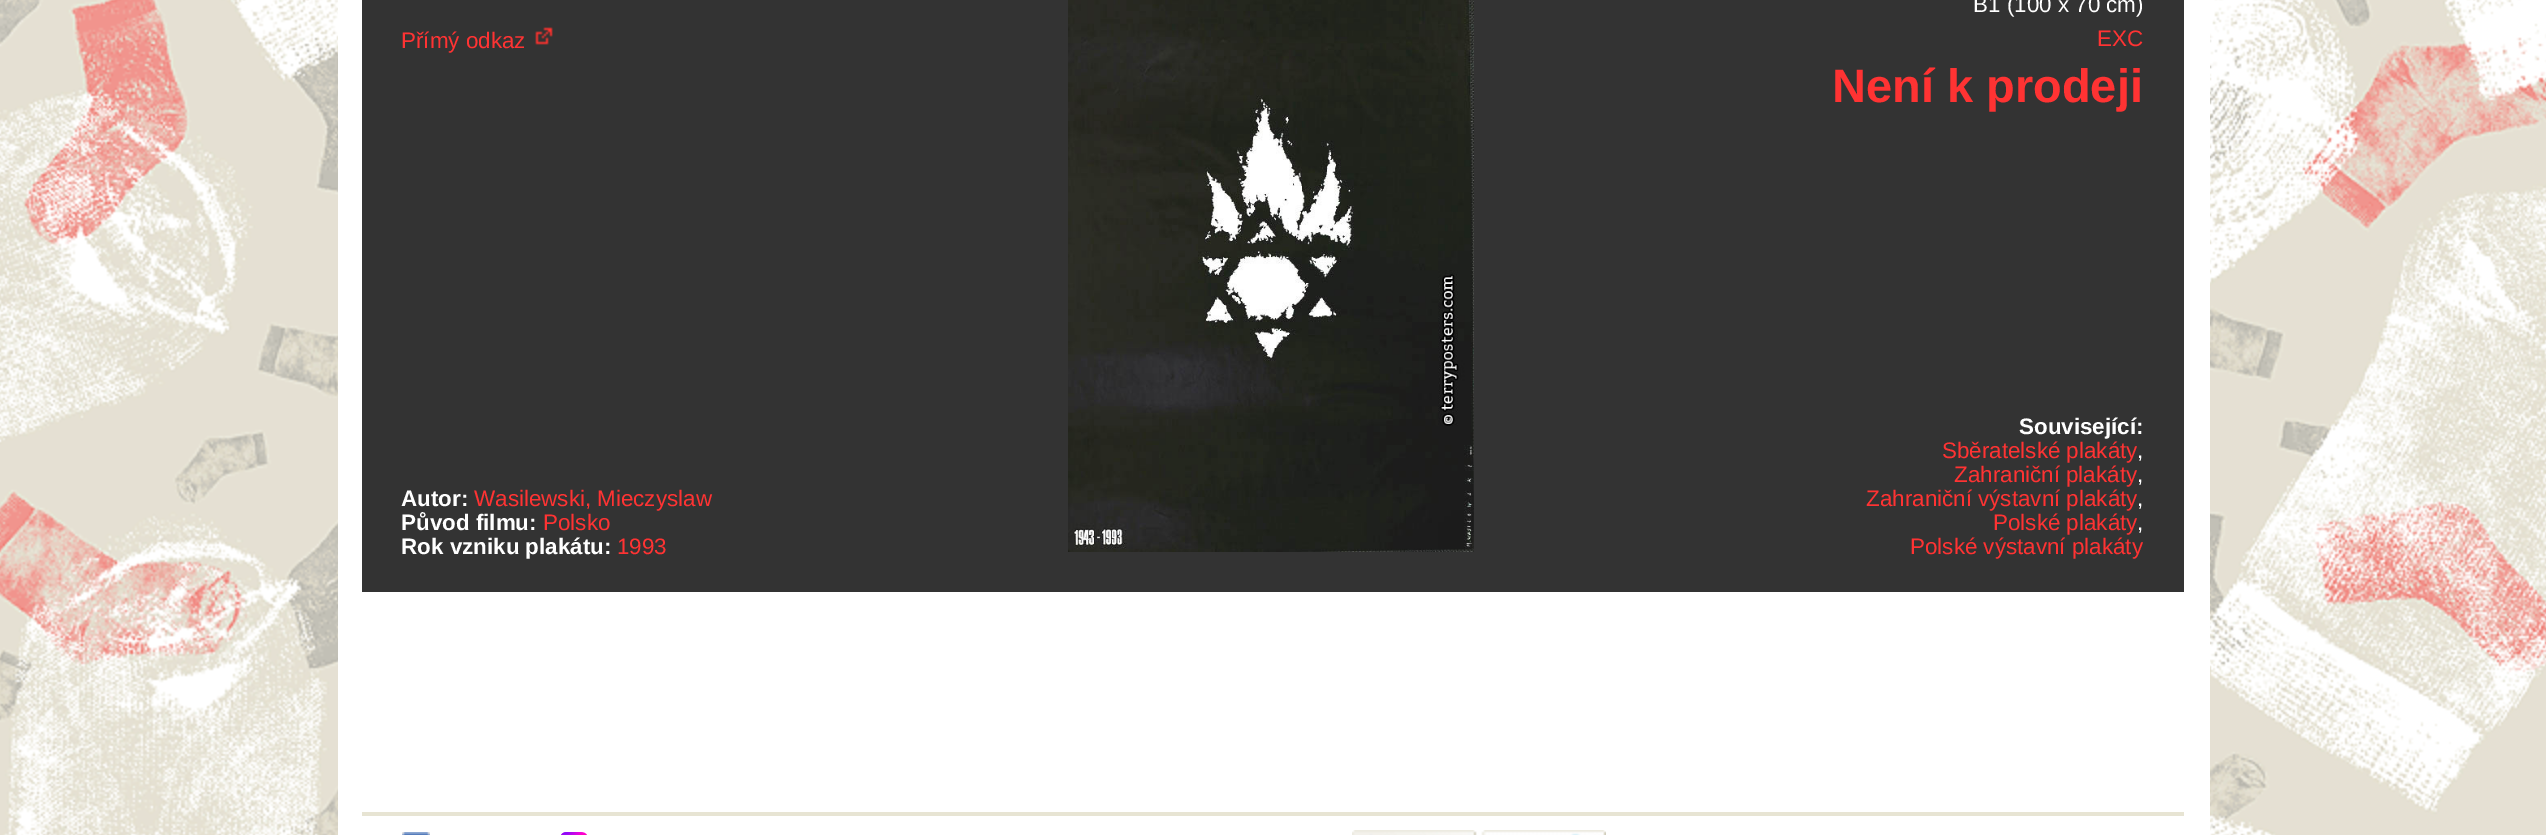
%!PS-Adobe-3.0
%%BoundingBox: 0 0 2546 835
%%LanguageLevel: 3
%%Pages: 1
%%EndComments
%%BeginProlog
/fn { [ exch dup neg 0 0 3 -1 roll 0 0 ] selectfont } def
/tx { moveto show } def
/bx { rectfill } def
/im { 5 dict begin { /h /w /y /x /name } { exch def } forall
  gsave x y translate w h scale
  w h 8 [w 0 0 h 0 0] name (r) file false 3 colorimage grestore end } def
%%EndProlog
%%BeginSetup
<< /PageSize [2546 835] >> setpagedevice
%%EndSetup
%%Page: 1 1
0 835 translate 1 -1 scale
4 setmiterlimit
1 setgray
0 0 2546 835 bx
(image0.raw) 0 0 2546 835 im
338 0 1872 835 bx
0.2 setgray
362 0 1822 592 bx
/LiberationSans-Regular 22.4 fn
1 0.2 0.2 setrgbcolor
(Přímý odkaz) 401 48 tx
(image1.raw) 535 27 18 18 im
/LiberationSans-Bold 22.4 fn
1 setgray
(Autor:) 401 506 tx
/LiberationSans-Regular 22.4 fn
1 0.2 0.2 setrgbcolor
(Wasilewski, Mieczyslaw) 474 506 tx
/LiberationSans-Bold 22.4 fn
1 setgray
(Původ filmu:) 401 530 tx
/LiberationSans-Regular 22.4 fn
1 0.2 0.2 setrgbcolor
(Polsko) 543 530 tx
/LiberationSans-Bold 22.4 fn
1 setgray
(Rok vzniku plakátu:) 401 554 tx
/LiberationSans-Regular 22.4 fn
1 0.2 0.2 setrgbcolor
(1993) 617 554 tx
(image2.raw) 1068 0 406 552 im
1 setgray
(B1 \(100 x 70 cm\)) 1973 12 tx
1 0.2 0.2 setrgbcolor
(EXC) 2097 46 tx
/LiberationSans-Bold 47 fn
(Není k prodeji) 1832 102 tx
/LiberationSans-Bold 22.4 fn
1 setgray
(Související:) 2019 434 tx
/LiberationSans-Regular 22.4 fn
1 0.2 0.2 setrgbcolor
(Sběratelské plakáty) 1942 458 tx
1 setgray
(,) 2137 458 tx
1 0.2 0.2 setrgbcolor
(Zahraniční plakáty) 1954 482 tx
1 setgray
(,) 2137 482 tx
1 0.2 0.2 setrgbcolor
(Zahraniční výstavní plakáty) 1866 506 tx
1 setgray
(,) 2137 506 tx
1 0.2 0.2 setrgbcolor
(Polské plakáty) 1993 530 tx
1 setgray
(,) 2137 530 tx
1 0.2 0.2 setrgbcolor
(Polské výstavní plakáty) 1910 554 tx
0.906 0.894 0.827 setrgbcolor
362 812 1822 4 bx
(image3.raw) 402 832 28 3 im
(image4.raw) 561 832 26 3 im
(image5.raw) 1352 830 254 5 im
showpage
%%EOF
